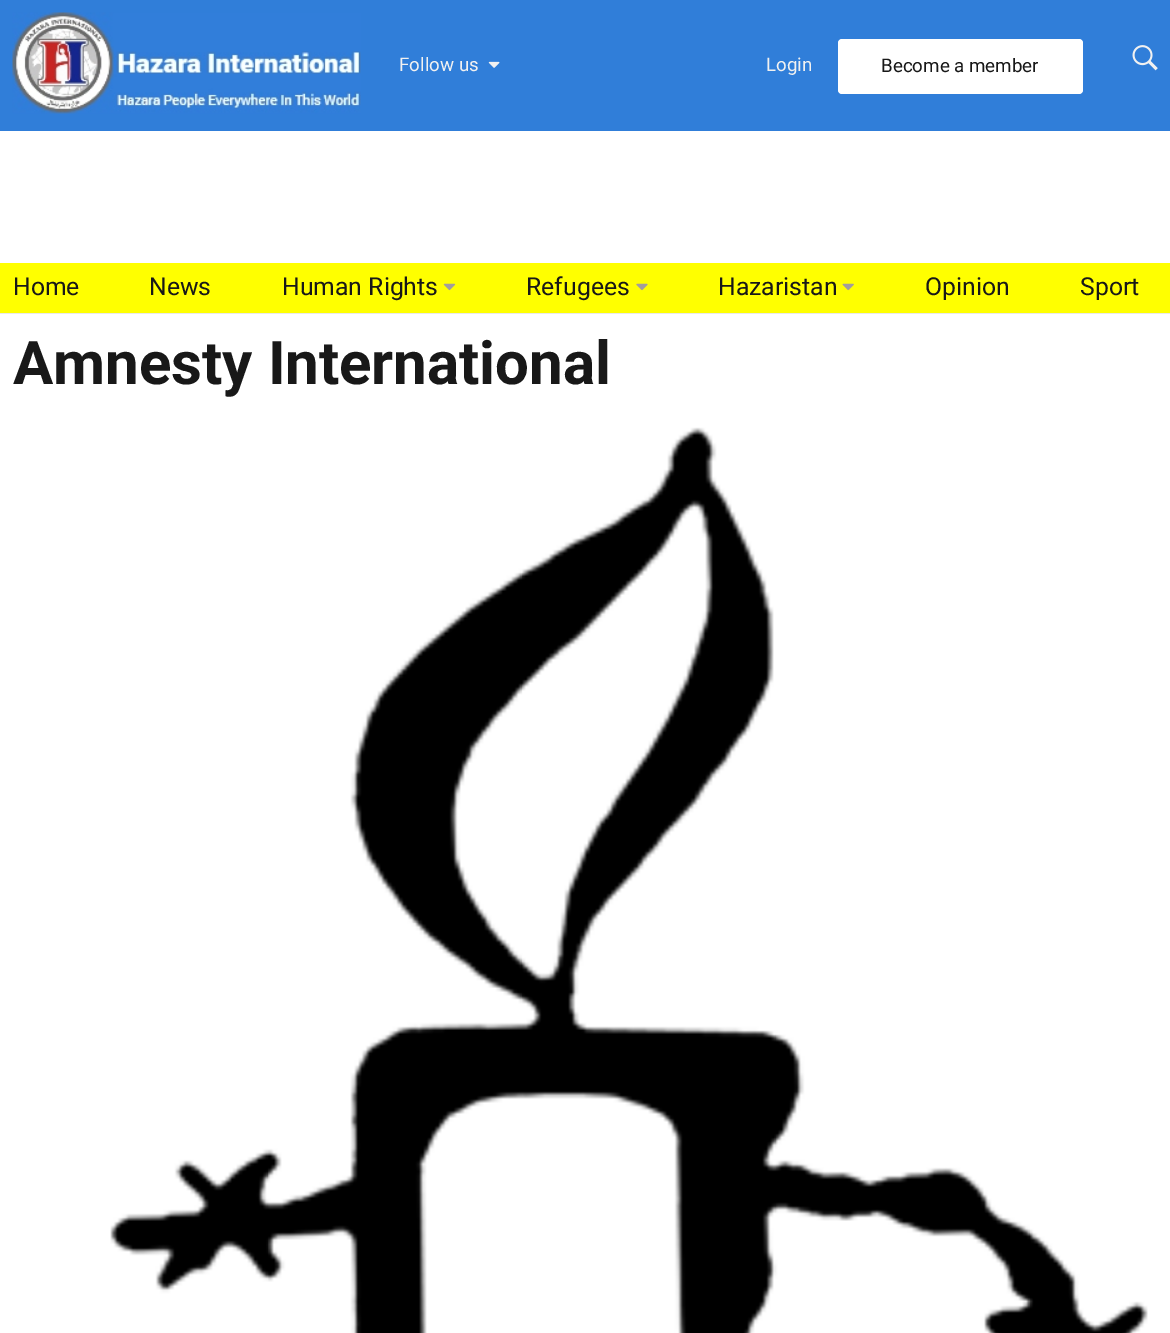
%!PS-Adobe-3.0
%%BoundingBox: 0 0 1170 1333
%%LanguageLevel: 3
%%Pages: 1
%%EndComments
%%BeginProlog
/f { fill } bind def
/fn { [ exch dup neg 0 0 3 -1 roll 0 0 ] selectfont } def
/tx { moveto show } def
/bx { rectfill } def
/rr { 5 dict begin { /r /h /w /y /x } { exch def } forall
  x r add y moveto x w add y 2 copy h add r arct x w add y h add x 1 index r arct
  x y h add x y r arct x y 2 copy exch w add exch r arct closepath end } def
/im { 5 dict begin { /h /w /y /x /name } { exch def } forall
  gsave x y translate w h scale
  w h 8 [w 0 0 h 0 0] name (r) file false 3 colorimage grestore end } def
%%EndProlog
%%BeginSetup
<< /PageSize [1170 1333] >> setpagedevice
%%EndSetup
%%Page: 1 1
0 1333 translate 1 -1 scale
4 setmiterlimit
1 setgray
0 0 1170 1333 bx
0.188 0.494 0.851 setrgbcolor
0 0 1170 131 bx
(image0.raw) 12 12 349 102 im
/Roboto-Regular 18.75 fn
0.945 setgray
(Follow us) 399 71 tx
(image1.raw) 488 61 12 7 im
(Login) 766 71 tx
1 setgray
838 39 245 55 4 rr f
0.094 setgray
(Become a member) 881 72 tx
(image2.raw) 1132 45 26 26 im
1 1 0 setrgbcolor
0 263 1170 50 bx
0.918 setgray
0 313 1170 1 bx
/Roboto-Regular 24.75 fn
0.094 setgray
(Home) 13 295 tx
(News) 149 295 tx
(Human Rights) 282 295 tx
(image3.raw) 443 283 13 8 im
(Refugees) 526 295 tx
(image4.raw) 636 283 12 8 im
(Hazaristan) 718 295 tx
(image5.raw) 842 283 12 8 im
(Opinion) 925 295 tx
(Sport) 1080 295 tx
/Roboto-Bold 60 fn
(Amnesty International) 13 384 tx
(image6.raw) 110 427 1038 906 im
showpage
%%EOF
